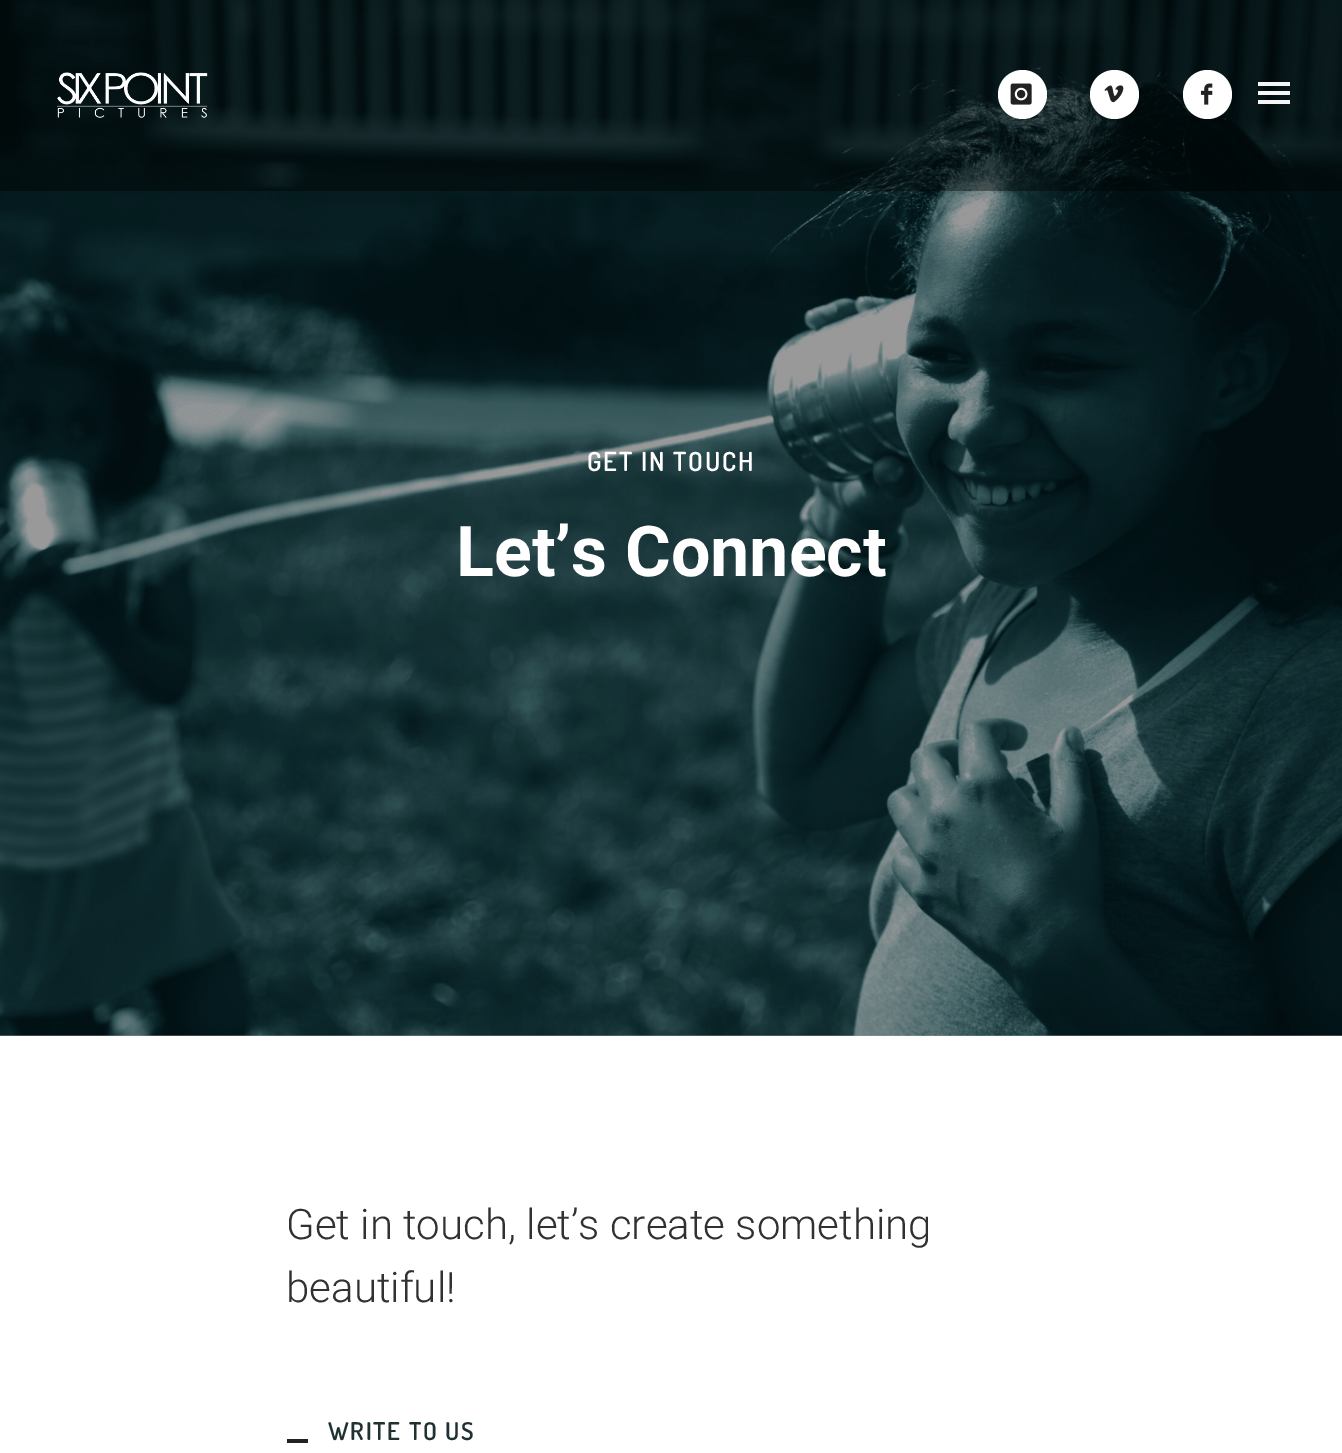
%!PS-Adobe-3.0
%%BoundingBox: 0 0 1342 1453
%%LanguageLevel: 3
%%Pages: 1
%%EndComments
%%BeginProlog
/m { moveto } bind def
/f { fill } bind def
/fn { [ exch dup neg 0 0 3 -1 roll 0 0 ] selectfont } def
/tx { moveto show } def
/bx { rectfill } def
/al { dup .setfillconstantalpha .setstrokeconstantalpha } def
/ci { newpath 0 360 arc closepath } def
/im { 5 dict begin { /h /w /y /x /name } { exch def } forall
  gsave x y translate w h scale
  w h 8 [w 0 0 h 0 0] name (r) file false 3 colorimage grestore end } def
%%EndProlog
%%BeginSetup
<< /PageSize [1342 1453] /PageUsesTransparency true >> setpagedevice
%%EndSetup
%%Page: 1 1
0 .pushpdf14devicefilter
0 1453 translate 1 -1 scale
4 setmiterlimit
1 setgray
0 0 1342 1453 bx
(image4.raw) 0 0 1342 1036 im
0.4 al
0 setgray
0 0 1342 191 bx
1 al
(image0.raw) 57 72 151 46 im
1 setgray
1022.5 94.5 24.5 ci f
(image1.raw) 1010 83 22 22 im
1114.5 94.5 24.5 ci f
(image2.raw) 1104 85 20 18 im
1207.5 94.5 24.5 ci f
(image3.raw) 1200 83 13 22 im
0.961 setgray
1258 82 32 4 bx
1258 91 32 4 bx
1258 100 32 4 bx
/Dosis-SemiBold 26.25 fn
1 setgray
587 471 m 1.75 0 (GET IN TOUCH) ashow
/Roboto-Bold 70 fn
(Let’s Connect) 456 576 tx
/Roboto-Light 42 fn
0.188 0.192 0.196 setrgbcolor
(Get in touch, let’s create something) 286 1239 tx
(beautiful!) 286 1302 tx
0.133 setgray
287 1439 21 4 bx
/Dosis-SemiBold 24.5 fn
0.125 0.192 0.196 setrgbcolor
328 1440 m 1.75 0 (WRITE TO US) ashow
.poppdf14devicefilter showpage
%%EOF
